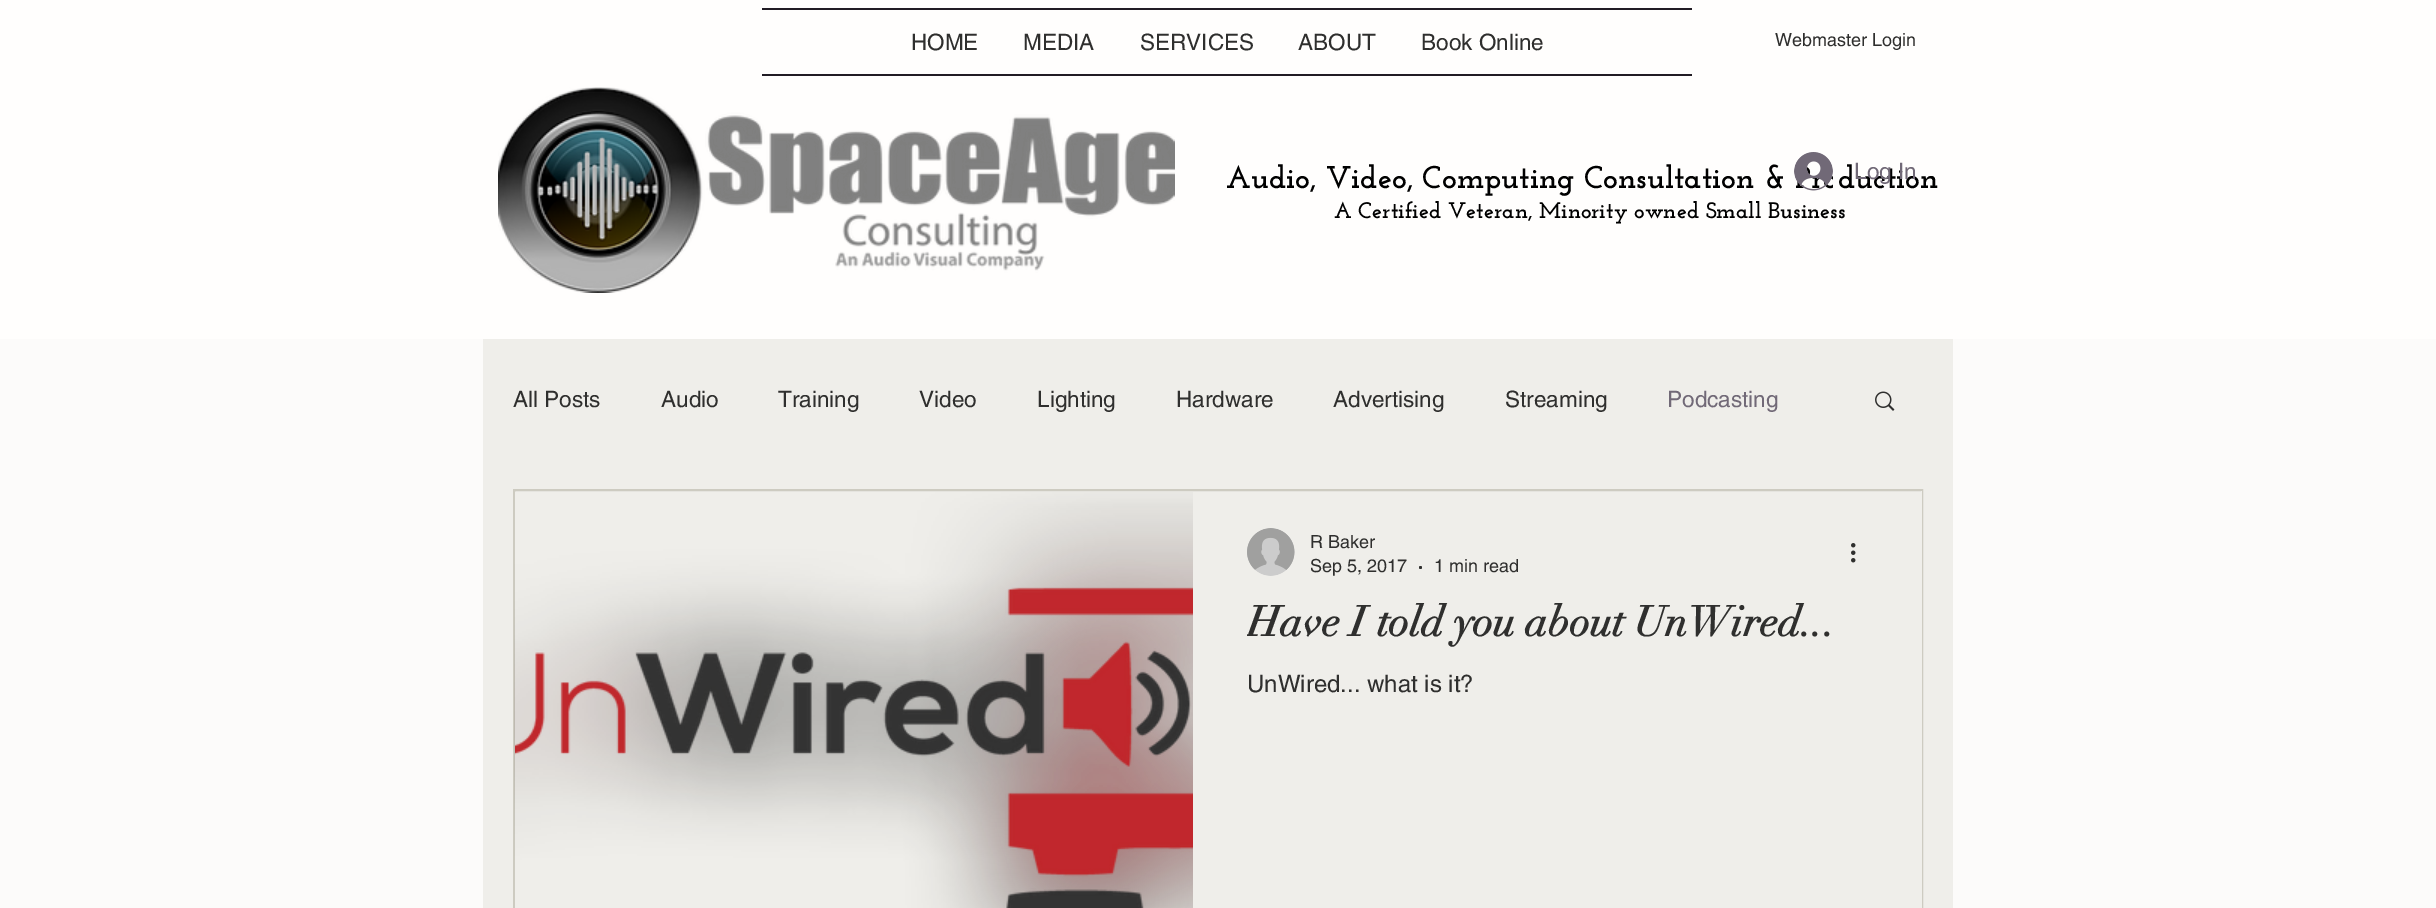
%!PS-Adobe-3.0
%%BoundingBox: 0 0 2436 908
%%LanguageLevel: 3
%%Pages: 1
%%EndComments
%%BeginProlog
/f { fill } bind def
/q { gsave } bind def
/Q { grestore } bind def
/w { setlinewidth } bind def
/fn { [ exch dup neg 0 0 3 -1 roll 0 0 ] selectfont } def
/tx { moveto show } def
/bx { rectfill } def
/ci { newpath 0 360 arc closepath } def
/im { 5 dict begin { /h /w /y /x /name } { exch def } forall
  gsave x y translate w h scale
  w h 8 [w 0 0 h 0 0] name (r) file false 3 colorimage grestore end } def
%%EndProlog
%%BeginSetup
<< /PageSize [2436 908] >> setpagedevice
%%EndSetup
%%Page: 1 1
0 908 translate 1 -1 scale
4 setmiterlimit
0.988 0.984 0.98 setrgbcolor
0 0 2436 908 bx
1 0.996 0.992 setrgbcolor
0 0 2436 339 bx
0.129 0.11 0.141 setrgbcolor
762 8 930 2 bx
762 74 930 2 bx
/helvetica-Regular 22.5 fn
0.184 0.184 0.18 setrgbcolor
(HOME) 911 50 tx
(MEDIA) 1023 50 tx
(SERVICES) 1140 50 tx
(ABOUT) 1298 50 tx
(Book Online) 1421 50 tx
/helvetica-Regular 18 fn
(Webmaster Login) 1775 46 tx
(image0.raw) 498 87 677 206 im
(image1.raw) 1794 152 39 39 im
/JosefinSlab-Bold 31.5 fn
0 setgray
(duction) 1838 188 tx
/helvetica-Regular 22.5 fn
0.443 0.412 0.467 setrgbcolor
(Log In) 1854 179 tx
/JosefinSlab-Bold 31.5 fn
0 setgray
(Audio, Video, Computing Consultation &) 1226 188 tx
/JosefinSlab-Bold 22.5 fn
(A Certified Veteran, Minority owned Small Business) 1334 218 tx
0.937 0.933 0.918 setrgbcolor
483 339 1470 569 bx
/helvetica-Regular 22.5 fn
0.184 0.184 0.18 setrgbcolor
(All Posts) 513 407 tx
(Audio) 661 407 tx
(Training) 778 407 tx
(Video) 919 407 tx
(Lighting) 1037 407 tx
(Hardware) 1176 407 tx
(Advertising) 1333 407 tx
(Streaming) 1505 407 tx
0.443 0.412 0.467 setrgbcolor
(Podcasting) 1667 407 tx
(image2.raw) 1875 391 20 20 im
0.804 0.796 0.757 setrgbcolor
2 w
514 490 1408 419 rectstroke
(image3.raw) 514 492 679 416 im
(image4.raw) 515 587 678 321 im
0.937 0.933 0.918 setrgbcolor
1921 491 1 417 bx
(image5.raw) 1247 528 48 48 im
/helvetica-Regular 18 fn
0.184 0.184 0.18 setrgbcolor
(R Baker) 1310 548 tx
(Sep 5, 2017) 1310 572 tx
1420.5 567.5 1.5 ci f
(1 min read) 1434 572 tx
(image6.raw) 1851 543 5 20 im
q
1247 597 621 51 rectclip
/didot-Bold 42 fn
(Have I told you about UnWired...) 1247 636 tx
Q
/helvetica-Regular 24 fn
(UnWired... what is it?) 1247 692 tx
showpage
%%EOF
